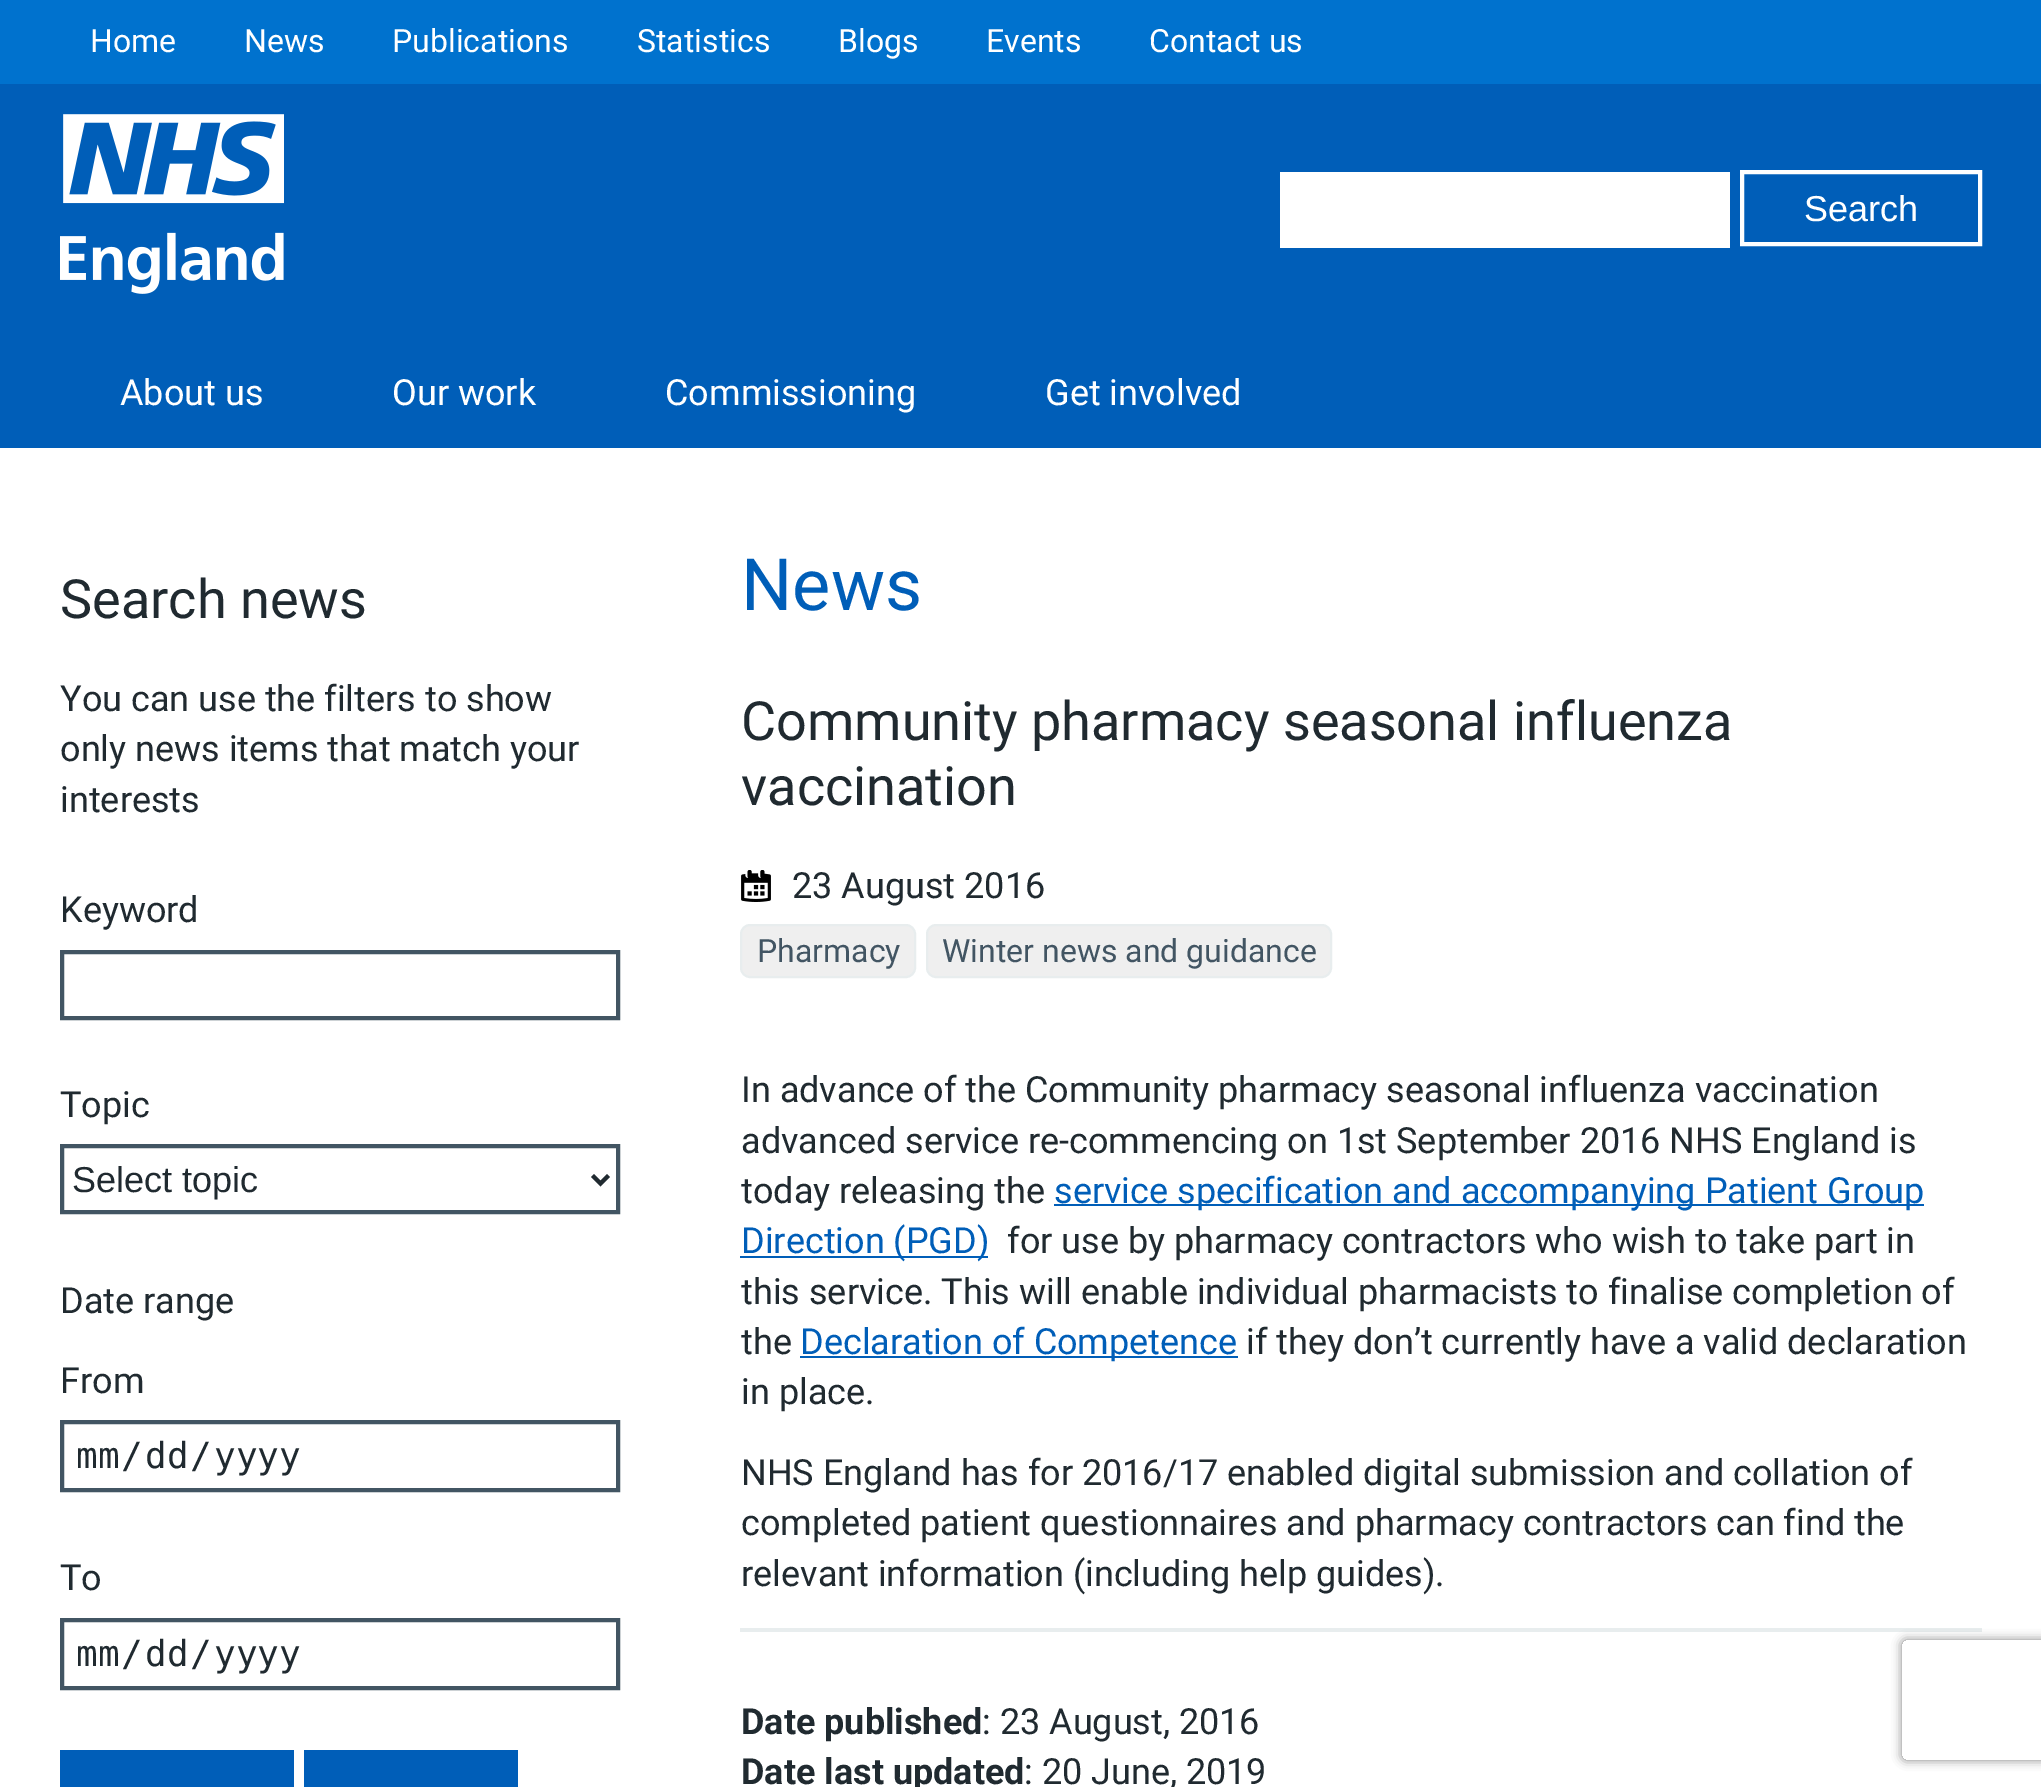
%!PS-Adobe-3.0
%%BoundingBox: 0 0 2041 1787
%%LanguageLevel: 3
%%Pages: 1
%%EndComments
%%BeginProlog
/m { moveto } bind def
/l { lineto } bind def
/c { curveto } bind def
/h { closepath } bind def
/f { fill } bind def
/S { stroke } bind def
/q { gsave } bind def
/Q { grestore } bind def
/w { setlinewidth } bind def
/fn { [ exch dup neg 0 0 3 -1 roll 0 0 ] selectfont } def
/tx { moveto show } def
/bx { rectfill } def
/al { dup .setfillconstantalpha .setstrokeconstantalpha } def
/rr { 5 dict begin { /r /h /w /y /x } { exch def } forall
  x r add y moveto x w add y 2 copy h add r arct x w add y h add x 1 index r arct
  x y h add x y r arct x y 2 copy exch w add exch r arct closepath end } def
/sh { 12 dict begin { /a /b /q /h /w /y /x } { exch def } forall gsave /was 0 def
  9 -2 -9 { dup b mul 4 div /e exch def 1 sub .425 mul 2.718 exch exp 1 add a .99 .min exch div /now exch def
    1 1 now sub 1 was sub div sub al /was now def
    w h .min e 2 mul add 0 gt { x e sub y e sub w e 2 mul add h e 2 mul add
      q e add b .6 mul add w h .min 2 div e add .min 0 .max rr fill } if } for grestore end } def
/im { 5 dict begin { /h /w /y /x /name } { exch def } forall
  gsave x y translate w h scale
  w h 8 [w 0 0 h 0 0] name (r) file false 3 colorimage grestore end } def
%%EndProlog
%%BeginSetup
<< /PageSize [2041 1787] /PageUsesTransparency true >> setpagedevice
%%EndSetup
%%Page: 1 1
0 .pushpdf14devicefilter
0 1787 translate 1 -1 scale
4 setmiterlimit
1 setgray
0 0 2041 1787 bx
0 0.447 0.808 setrgbcolor
0 0 2041 84 bx
/Roboto-Regular 32 fn
1 setgray
(Home) 90 52 tx
(News) 244 52 tx
(Publications) 392 52 tx
(Statistics) 637 52 tx
(Blogs) 838 52 tx
(Events) 986 52 tx
(Contact us) 1149 52 tx
0 0.369 0.722 setrgbcolor
0 84 2041 364 bx
(image0.raw) 60 114 224 180 im
1 setgray
1280 172 450 76 bx
4 w
1742 172 238 72 rectstroke
/LiberationSans-Regular 36 fn
(Search) 1804 221 tx
/Roboto-Regular 36 fn
(About us) 120 405 tx
(Our work) 392 405 tx
(Commissioning) 665 405 tx
(Get involved) 1045 405 tx
/Roboto-Regular 54 fn
0.125 0.165 0.188 setrgbcolor
(Search news) 60 618 tx
/Roboto-Regular 36 fn
(You can use the filters to show) 60 711 tx
(only news items that match your) 60 761 tx
(interests) 60 812 tx
(Keyword) 60 922 tx
0.259 0.333 0.388 setrgbcolor
62 952 556 66 rectstroke
0.125 0.165 0.188 setrgbcolor
(Topic) 60 1117 tx
0.259 0.333 0.388 setrgbcolor
62 1146 556 66 rectstroke
0.125 0.165 0.188 setrgbcolor
592.5 1175.5 m 600.5 1183.5 l 608.5 1175.5 l S
/LiberationSans-Regular 36 fn
(Select topic) 72 1192 tx
/Roboto-Regular 36 fn
(Date range) 60 1313 tx
(From) 60 1393 tx
0.259 0.333 0.388 setrgbcolor
62 1422 556 68 rectstroke
/DejaVuSansMono-Regular 36 fn
0.125 0.165 0.188 setrgbcolor
(mm) 76 1468 tx
(/) 121 1468 tx
(dd) 145 1468 tx
(/) 190 1468 tx
(yyyy) 214 1468 tx
/Roboto-Regular 36 fn
(To) 60 1590 tx
0.259 0.333 0.388 setrgbcolor
62 1620 556 68 rectstroke
/DejaVuSansMono-Regular 36 fn
0.125 0.165 0.188 setrgbcolor
(mm) 76 1666 tx
(/) 121 1666 tx
(dd) 145 1666 tx
(/) 190 1666 tx
(yyyy) 214 1666 tx
0 0.369 0.722 setrgbcolor
60 1750 234 37 bx
304 1750 214 37 bx
/Roboto-Regular 72 fn
(News) 741 610 tx
/Roboto-Regular 54 fn
0.125 0.165 0.188 setrgbcolor
(Community pharmacy seasonal influenza) 741 740 tx
(vaccination) 741 805 tx
(image1.raw) 741 870 30 32 im
/Roboto-Regular 36 fn
(23 August 2016) 792 898 tx
0.937 setgray
741 925 174 52 9 rr q f Q
0.91 0.929 0.933 setrgbcolor
2 w
S
/Roboto-Regular 32 fn
0.259 0.333 0.388 setrgbcolor
(Pharmacy) 757 962 tx
0.937 setgray
927 925 404 52 9 rr q f Q
0.91 0.929 0.933 setrgbcolor
S
0.259 0.333 0.388 setrgbcolor
(Winter news and guidance) 942 962 tx
/Roboto-Regular 36 fn
0.125 0.165 0.188 setrgbcolor
(In advance of the Community pharmacy seasonal influenza vaccination) 741 1102 tx
(advanced service re-commencing on 1st September 2016 NHS England is) 741 1153 tx
(today releasing the) 741 1203 tx
0 0.369 0.722 setrgbcolor
1054 1204 870 2 bx
(service specification and accompanying Patient Group) 1054 1203 tx
740 1256 248 2 bx
(Direction \(PGD\)) 741 1253 tx
0.125 0.165 0.188 setrgbcolor
(for use by pharmacy contractors who wish to take part in) 1007 1253 tx
(this service. This will enable individual pharmacists to finalise completion of) 741 1304 tx
(the) 741 1354 tx
0 0.369 0.722 setrgbcolor
800 1356 438 2 bx
(Declaration of Competence) 800 1354 tx
0.125 0.165 0.188 setrgbcolor
(if they don’t currently have a valid declaration) 1246 1354 tx
(in place.) 741 1404 tx
(NHS England has for 2016/17 enabled digital submission and collation of) 741 1485 tx
(completed patient questionnaires and pharmacy contractors can find the) 741 1535 tx
(relevant information \(including help guides\).) 741 1586 tx
0.91 0.929 0.933 setrgbcolor
740 1628 1242 4 bx
/Roboto-Bold 36 fn
0.125 0.165 0.188 setrgbcolor
(Date published) 741 1734 tx
/Roboto-Regular 36 fn
(: 23 August, 2016) 982 1734 tx
/Roboto-Bold 36 fn
(Date last updated) 741 1784 tx
/Roboto-Regular 36 fn
(: 20 June, 2019) 1024 1784 tx
q
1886 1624 m 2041 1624 l 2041 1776 l 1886 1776 l h 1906 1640 m 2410 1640 l 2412 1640 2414 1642 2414 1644 c 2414 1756 l 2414 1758 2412 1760 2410 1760 c 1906 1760 l 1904 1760 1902 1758 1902 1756 c 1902 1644 l 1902 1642 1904 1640 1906 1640 c h eoclip newpath
0.502 setgray
1902 1640 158 120 4 5 1 sh
Q
.poppdf14devicefilter showpage
%%EOF
